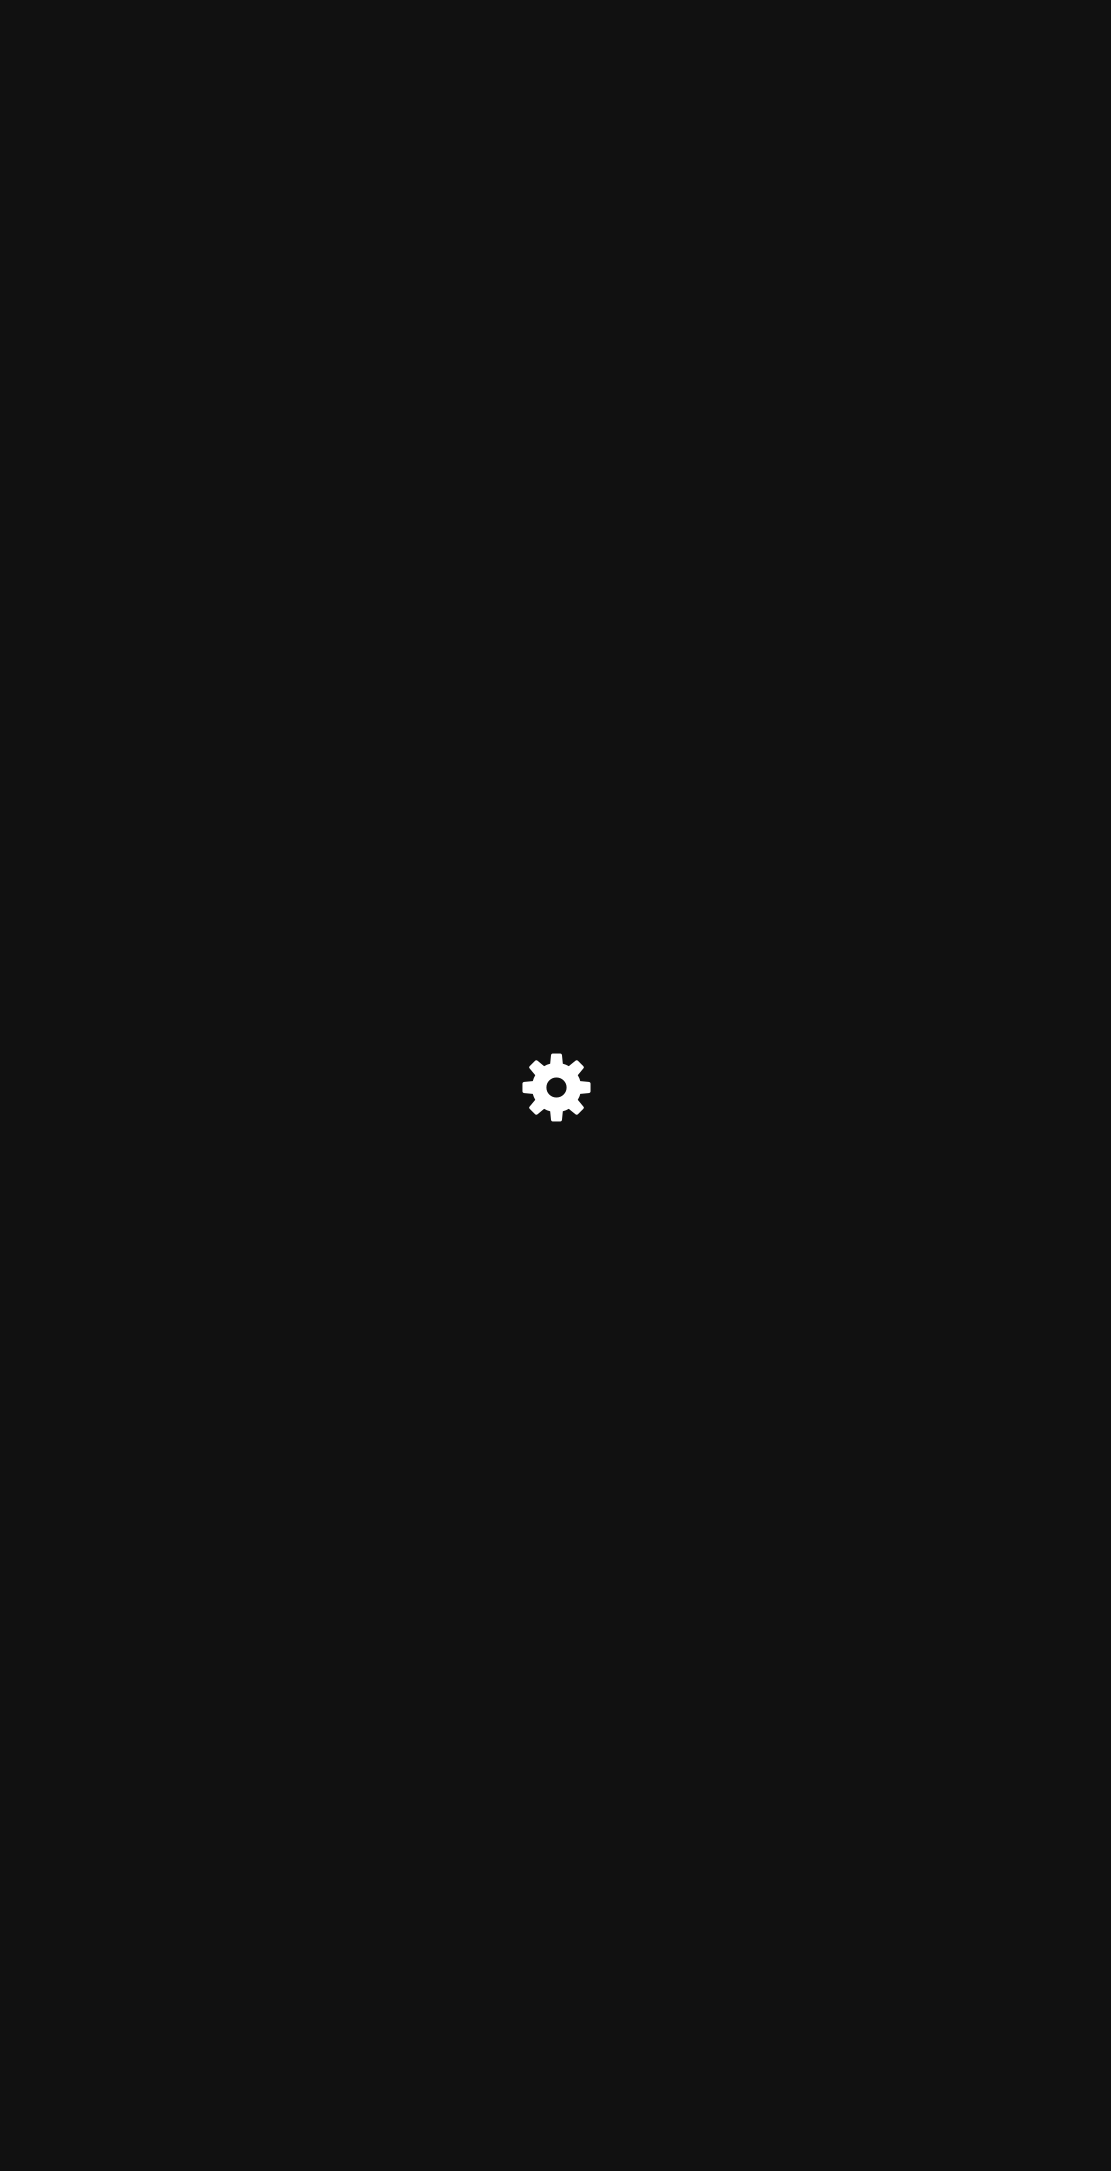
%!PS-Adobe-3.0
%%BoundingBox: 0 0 1111 2171
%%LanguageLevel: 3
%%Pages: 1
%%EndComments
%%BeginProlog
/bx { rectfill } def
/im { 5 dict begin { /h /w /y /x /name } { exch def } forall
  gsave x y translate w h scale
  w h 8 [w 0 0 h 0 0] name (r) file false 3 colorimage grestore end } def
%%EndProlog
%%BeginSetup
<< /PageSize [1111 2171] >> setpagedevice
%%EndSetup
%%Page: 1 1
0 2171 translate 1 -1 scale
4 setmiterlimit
0.067 setgray
0 0 1111 2171 bx
(image0.raw) 522 1053 69 69 im
showpage
%%EOF
